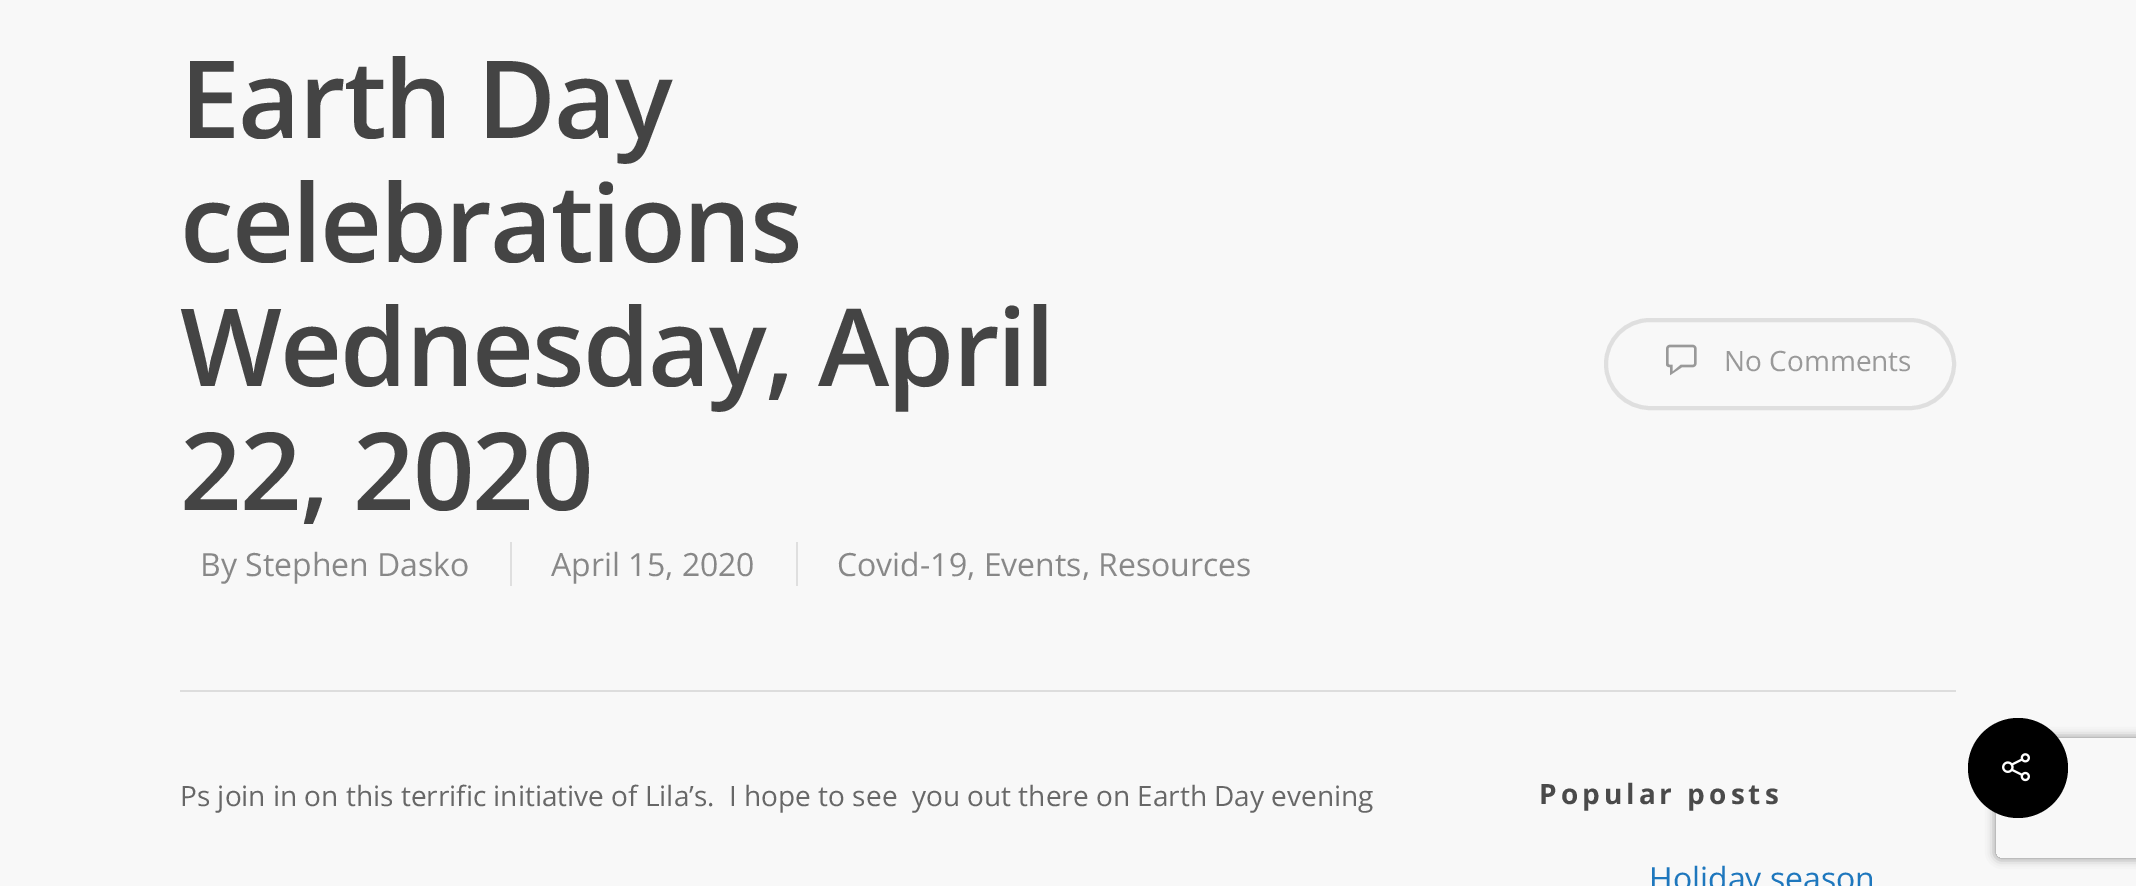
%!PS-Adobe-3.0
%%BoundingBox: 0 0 2136 886
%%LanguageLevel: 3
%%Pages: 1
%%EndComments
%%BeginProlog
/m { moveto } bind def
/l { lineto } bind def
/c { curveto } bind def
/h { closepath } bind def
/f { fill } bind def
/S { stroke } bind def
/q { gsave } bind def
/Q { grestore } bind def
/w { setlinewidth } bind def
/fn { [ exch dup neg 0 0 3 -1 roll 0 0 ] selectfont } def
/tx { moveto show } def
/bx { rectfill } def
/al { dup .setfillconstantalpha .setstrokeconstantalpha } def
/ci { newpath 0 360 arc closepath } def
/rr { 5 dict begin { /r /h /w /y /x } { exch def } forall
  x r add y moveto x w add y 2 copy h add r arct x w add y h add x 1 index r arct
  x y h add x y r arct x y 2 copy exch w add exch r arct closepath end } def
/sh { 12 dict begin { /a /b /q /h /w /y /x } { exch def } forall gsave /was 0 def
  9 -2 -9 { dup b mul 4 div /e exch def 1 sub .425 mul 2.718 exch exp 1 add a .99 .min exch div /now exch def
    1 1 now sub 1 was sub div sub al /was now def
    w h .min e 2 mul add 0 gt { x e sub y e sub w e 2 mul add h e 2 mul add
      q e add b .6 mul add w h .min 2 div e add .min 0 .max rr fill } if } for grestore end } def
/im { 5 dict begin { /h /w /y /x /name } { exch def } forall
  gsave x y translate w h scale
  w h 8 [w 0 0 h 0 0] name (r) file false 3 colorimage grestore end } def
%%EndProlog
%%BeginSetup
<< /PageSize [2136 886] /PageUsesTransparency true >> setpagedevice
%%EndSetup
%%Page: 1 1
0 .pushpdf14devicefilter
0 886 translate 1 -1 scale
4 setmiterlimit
0.973 setgray
0 0 2136 886 bx
0.867 setgray
180 690 1776 2 bx
/OpenSans-SemiBold 108 fn
0.267 setgray
180 138 m -2 0 (Earth Day) ashow
180 262 m -2 0 (celebrations) ashow
180 386 m -2 0 (Wednesday, April) ashow
180 510 m -2 0 (22, 2020) ashow
0.875 setgray
4 w
1606 320 348 88 44 rr S
(image0.raw) 1666 344 31 32 im
/OpenSans-Regular 28 fn
0.6 setgray
(No Comments) 1724 371 tx
/OpenSans-Regular 32 fn
0.533 setgray
(By Stephen Dasko) 200 576 tx
(April 15, 2020) 551 576 tx
0.875 setgray
510 542 2 44 bx
0.533 setgray
(Covid-19, Events, Resources) 837 576 tx
0.875 setgray
796 542 2 44 bx
/OpenSans-Regular 28 fn
0.404 setgray
(Ps join in on this terrific initiative of Lila’s.  I hope to see  you out there on Earth Day evening) 180 806 tx
/OpenSans-Bold 28 fn
0.29 setgray
1539 804 m 4 0 (Popular posts) ashow
/OpenSans-Regular 32 fn
0.118 0.467 0.741 setrgbcolor
(Holiday season) 1649 890 tx
q
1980 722 m 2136 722 l 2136 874 l 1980 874 l h 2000 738 m 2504 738 l 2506 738 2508 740 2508 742 c 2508 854 l 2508 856 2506 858 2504 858 c 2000 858 l 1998 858 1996 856 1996 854 c 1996 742 l 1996 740 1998 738 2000 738 c h eoclip newpath
0.502 setgray
1996 738 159 120 4 5 1 sh
Q
0 setgray
2018 768 50 ci f
(image1.raw) 2002 753 28 29 im
.poppdf14devicefilter showpage
%%EOF
